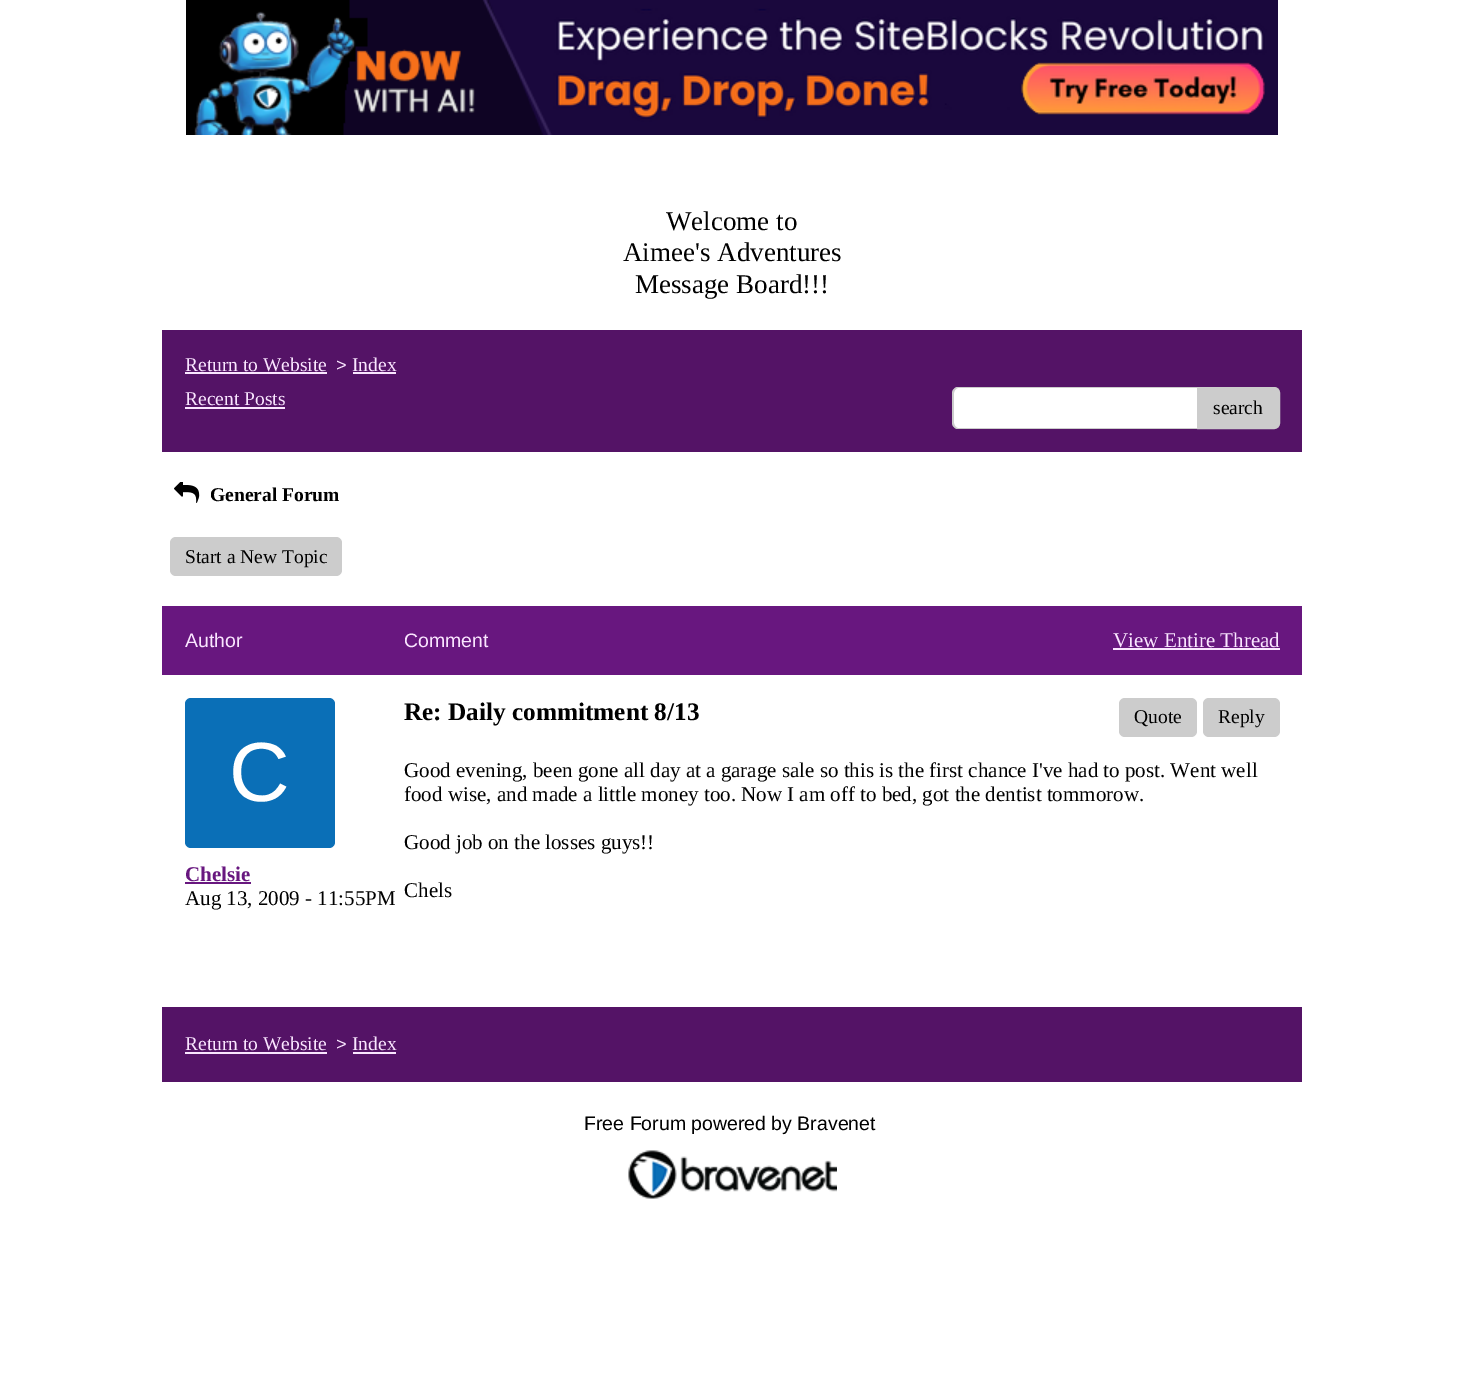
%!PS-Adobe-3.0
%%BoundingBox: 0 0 1463 1388
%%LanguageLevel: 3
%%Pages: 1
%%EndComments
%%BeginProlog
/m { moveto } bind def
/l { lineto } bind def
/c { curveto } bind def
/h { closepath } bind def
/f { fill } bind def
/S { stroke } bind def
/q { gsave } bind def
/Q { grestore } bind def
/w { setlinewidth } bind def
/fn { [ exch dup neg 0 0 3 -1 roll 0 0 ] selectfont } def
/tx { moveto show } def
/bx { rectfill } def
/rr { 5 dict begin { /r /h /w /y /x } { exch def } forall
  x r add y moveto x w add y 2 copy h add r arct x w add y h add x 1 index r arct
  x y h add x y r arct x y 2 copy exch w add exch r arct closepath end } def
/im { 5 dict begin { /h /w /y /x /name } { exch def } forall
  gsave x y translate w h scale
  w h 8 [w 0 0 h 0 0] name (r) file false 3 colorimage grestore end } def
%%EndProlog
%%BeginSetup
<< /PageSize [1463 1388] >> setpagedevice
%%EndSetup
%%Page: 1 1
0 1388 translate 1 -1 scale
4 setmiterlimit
1 setgray
0 0 1463 1388 bx
(image0.raw) 186 0 1092 135 im
/LiberationSerif-Regular 27 fn
0 setgray
(Welcome to) 666 230 tx
(Aimee's Adventures) 623 261 tx
(Message Board!!!) 635 293 tx
0.329 0.075 0.4 setrgbcolor
162 330 1140 122 bx
/LiberationSerif-Regular 19.5 fn
0.98 0.902 1 setrgbcolor
(Return to Website) 185 371 tx
185 372 142 2 bx
/LiberationSans-Regular 18 fn
(>) 336 371 tx
/LiberationSerif-Regular 19.5 fn
(Index) 352 371 tx
353 372 43 2 bx
(Recent Posts) 185 405 tx
185 407 100 2 bx
1 setgray
953 387 312 42 6 rr f
0.8 setgray
958 387 m 1258 387 l 1262 387 1264 390 1264 393 c 1264 423 l 1264 426 1262 429 1258 429 c 958 429 l 955 429 952 426 952 423 c 952 393 l 952 390 955 387 958 387 c h 958 388 m 1258 388 l 1262 388 1264 391 1264 393 c 1264 423 l 1264 425 1262 428 1258 428 c 958 428 l 956 428 954 425 954 423 c 954 393 l 954 391 956 388 958 388 c h eofill
1198 388 m 1274 388 l 1277 388 1279 390 1279 393 c 1279 423 l 1279 426 1277 428 1274 428 c 1198 428 l h q f Q
2 w
S
0 setgray
(search) 1213 414 tx
(image1.raw) 174 482 26 21 im
/LiberationSerif-Bold 19.5 fn
(General Forum) 210 501 tx
0.8 setgray
170 537 172 39 6 rr f
/LiberationSerif-Regular 19.5 fn
0 setgray
(Start a New Topic) 185 563 tx
0.408 0.09 0.498 setrgbcolor
162 606 1140 69 bx
/LiberationSans-Regular 19.5 fn
0.98 0.902 1 setrgbcolor
(Author) 185 647 tx
(Comment) 404 647 tx
/LiberationSerif-Regular 21 fn
(View Entire Thread) 1113 647 tx
1113 648 167 2 bx
0.039 0.435 0.718 setrgbcolor
185 698 150 150 6 rr f
/LiberationSans-Regular 84 fn
1 setgray
(C) 229 801 tx
/LiberationSerif-Bold 21 fn
0.408 0.09 0.498 setrgbcolor
(Chelsie) 185 881 tx
185 882 66 2 bx
/LiberationSerif-Regular 21 fn
0 setgray
(Aug 13, 2009 - 11:55PM) 185 905 tx
/LiberationSerif-Bold 25.25 fn
(Re: Daily commitment 8/13) 404 720 tx
0.8 setgray
1119 698 78 39 6 rr f
/LiberationSerif-Regular 19.5 fn
0 setgray
(Quote) 1134 723 tx
0.8 setgray
1203 698 77 39 6 rr f
0 setgray
(Reply) 1218 723 tx
/LiberationSerif-Regular 21 fn
(Good evening, been gone all day at a garage sale so this is the first chance I've had to post. Went well) 404 777 tx
(food wise, and made a little money too. Now I am off to bed, got the dentist tommorow.) 404 801 tx
(Good job on the losses guys!!) 404 849 tx
(Chels) 404 897 tx
0.329 0.075 0.4 setrgbcolor
162 1007 1140 75 bx
/LiberationSerif-Regular 19.5 fn
0.98 0.902 1 setrgbcolor
(Return to Website) 185 1050 tx
185 1052 142 2 bx
/LiberationSans-Regular 18 fn
(>) 336 1050 tx
/LiberationSerif-Regular 19.5 fn
(Index) 352 1050 tx
353 1052 43 2 bx
/LiberationSans-Regular 19.5 fn
0 setgray
(Free Forum powered by Bravenet) 584 1130 tx
(image2.raw) 628 1150 209 49 im
showpage
%%EOF
